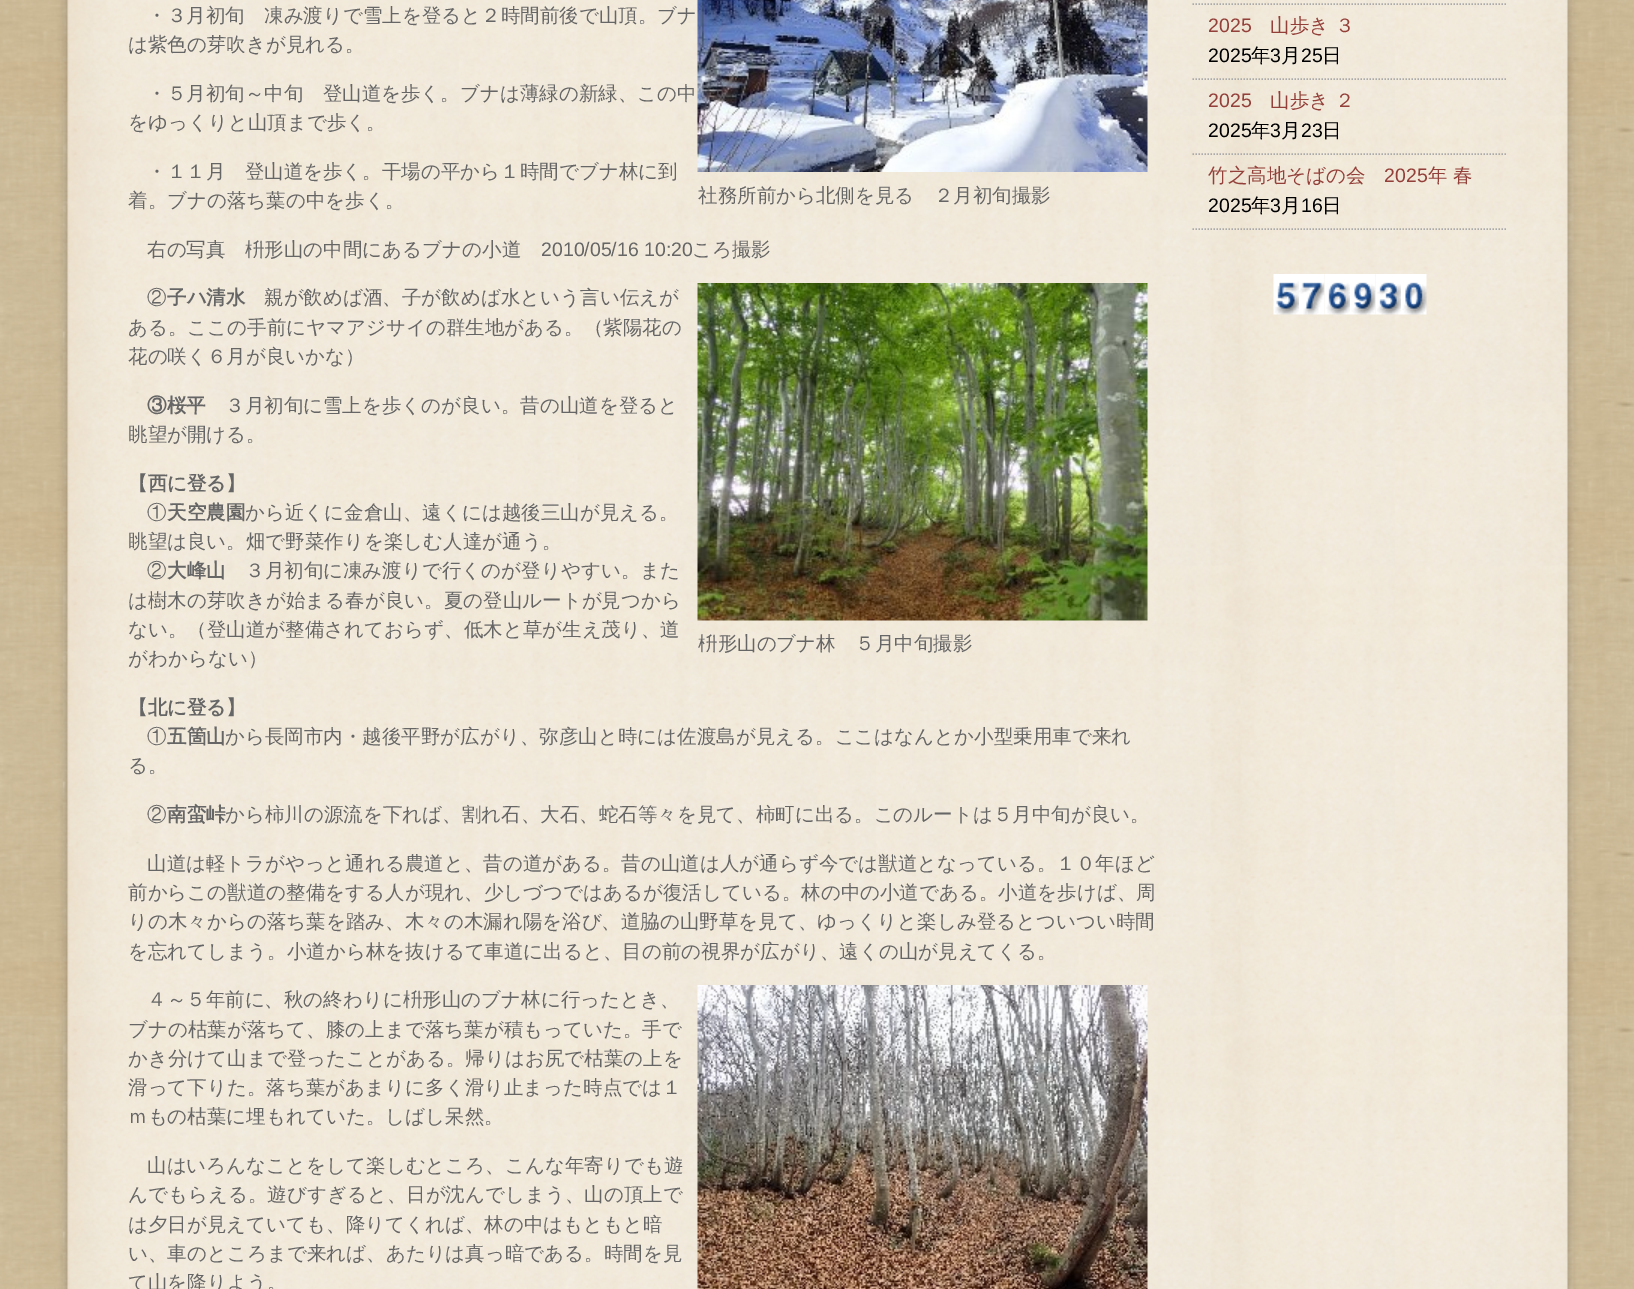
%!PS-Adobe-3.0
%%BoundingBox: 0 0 1634 1289
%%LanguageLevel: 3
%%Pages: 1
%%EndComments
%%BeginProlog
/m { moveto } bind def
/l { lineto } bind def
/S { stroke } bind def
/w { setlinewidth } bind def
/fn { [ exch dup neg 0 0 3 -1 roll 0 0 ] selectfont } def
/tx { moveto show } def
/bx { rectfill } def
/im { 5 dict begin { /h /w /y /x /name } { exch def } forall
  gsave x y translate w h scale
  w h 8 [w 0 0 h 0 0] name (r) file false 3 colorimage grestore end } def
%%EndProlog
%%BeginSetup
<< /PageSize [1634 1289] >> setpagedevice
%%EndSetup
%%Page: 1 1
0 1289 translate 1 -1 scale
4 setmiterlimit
1 setgray
0 0 1634 1289 bx
(image0.raw) 0 0 1634 1289 im
/WenQuanYiZenHei-Medium 19.5 fn
0.4 setgray
(・３月初旬　凍み渡りで雪上を登ると２時間前後で山頂。ブナ) 147 22 tx
(は紫色の芽吹きが見れる。) 128 51 tx
(・５月初旬～中旬　登山道を歩く。ブナは薄緑の新緑、この中) 147 100 tx
(をゆっくりと山頂まで歩く。) 128 129 tx
(・１１月　登山道を歩く。干場の平から１時間でブナ林に到) 147 178 tx
(着。ブナの落ち葉の中を歩く。) 128 207 tx
(image1.raw) 697 0 451 172 im
(社務所前から北側を見る　２月初旬撮影) 698 202 tx
(右の写真　枡形山の中間にあるブナの小道) 147 256 tx
/LiberationSans-Regular 19.5 fn
(2010/05/16 10:20) 541 256 tx
/WenQuanYiZenHei-Medium 19.5 fn
(ころ撮影) 692 256 tx
(②) 147 304 tx
/WenQuanYiZenHei-Bold 19.5 fn
(子ハ清水) 167 304 tx
/WenQuanYiZenHei-Medium 19.5 fn
(親が飲めば酒、子が飲めば水という言い伝えが) 264 304 tx
(ある。ここの手前にヤマアジサイの群生地がある。（紫陽花の) 128 334 tx
(花の咲く６月が良いかな）) 128 363 tx
/WenQuanYiZenHei-Bold 19.5 fn
(③桜平) 147 412 tx
/WenQuanYiZenHei-Medium 19.5 fn
(３月初旬に雪上を歩くのが良い。昔の山道を登ると) 225 412 tx
(眺望が開ける。) 128 441 tx
/WenQuanYiZenHei-Bold 19.5 fn
(【西に登る】) 128 490 tx
/WenQuanYiZenHei-Medium 19.5 fn
(①) 147 519 tx
/WenQuanYiZenHei-Bold 19.5 fn
(天空農園) 167 519 tx
/WenQuanYiZenHei-Medium 19.5 fn
(から近くに金倉山、遠くには越後三山が見える。) 245 519 tx
(眺望は良い。畑で野菜作りを楽しむ人達が通う。) 128 548 tx
(②) 147 577 tx
/WenQuanYiZenHei-Bold 19.5 fn
(大峰山) 167 577 tx
/WenQuanYiZenHei-Medium 19.5 fn
(３月初旬に凍み渡りで行くのが登りやすい。また) 245 577 tx
(は樹木の芽吹きが始まる春が良い。夏の登山ルートが見つから) 128 607 tx
(ない。（登山道が整備されておらず、低木と草が生え茂り、道) 128 636 tx
(がわからない）) 128 665 tx
(image2.raw) 697 283 451 338 im
(枡形山のブナ林　５月中旬撮影) 698 650 tx
/WenQuanYiZenHei-Bold 19.5 fn
(【北に登る】) 128 714 tx
/WenQuanYiZenHei-Medium 19.5 fn
(①) 147 743 tx
/WenQuanYiZenHei-Bold 19.5 fn
(五箇山) 167 743 tx
/WenQuanYiZenHei-Medium 19.5 fn
(から長岡市内・越後平野が広がり、弥彦山と時には佐渡島が見える。ここはなんとか小型乗用車で来れ) 225 743 tx
(る。) 128 772 tx
(②) 147 821 tx
/WenQuanYiZenHei-Bold 19.5 fn
(南蛮峠) 167 821 tx
/WenQuanYiZenHei-Medium 19.5 fn
(から柿川の源流を下れば、割れ石、大石、蛇石等々を見て、柿町に出る。このルートは５月中旬が良い。) 225 821 tx
(山道は軽トラがやっと通れる農道と、昔の道がある。昔の山道は人が通らず今では獣道となっている。１０年ほど) 147 870 tx
(前からこの獣道の整備をする人が現れ、少しづつではあるが復活している。林の中の小道である。小道を歩けば、周) 128 899 tx
(りの木々からの落ち葉を踏み、木々の木漏れ陽を浴び、道脇の山野草を見て、ゆっくりと楽しみ登るとついつい時間) 128 928 tx
(を忘れてしまう。小道から林を抜けるて車道に出ると、目の前の視界が広がり、遠くの山が見えてくる。) 128 958 tx
(４～５年前に、秋の終わりに枡形山のブナ林に行ったとき、) 147 1006 tx
(ブナの枯葉が落ちて、膝の上まで落ち葉が積もっていた。手で) 128 1036 tx
(かき分けて山まで登ったことがある。帰りはお尻で枯葉の上を) 128 1065 tx
(滑って下りた。落ち葉があまりに多く滑り止まった時点では１) 128 1094 tx
(ｍもの枯葉に埋もれていた。しばし呆然。) 128 1123 tx
(image3.raw) 697 985 451 304 im
(山はいろんなことをして楽しむところ、こんな年寄りでも遊) 147 1172 tx
(んでもらえる。遊びすぎると、日が沈んでしまう、山の頂上で) 128 1201 tx
(は夕日が見えていても、降りてくれば、林の中はもともと暗) 128 1231 tx
(い、車のところまで来れば、あたりは真っ暗である。時間を見) 128 1260 tx
(て山を降りよう。) 128 1289 tx
0.667 setgray
1.5 w
[1.5 1.5] 0 setdash
1192.5 4 m 1507.5 4 l S
1192.5 79 m 1507.5 79 l S
/LiberationSans-Regular 19.5 fn
0.576 0.251 0.227 setrgbcolor
(2025) 1208 32 tx
/WenQuanYiZenHei-Medium 19.5 fn
(山歩き ３) 1270 32 tx
/LiberationSans-Regular 19.5 fn
0 setgray
(2025) 1208 62 tx
/WenQuanYiZenHei-Medium 19.5 fn
(年) 1251 62 tx
/LiberationSans-Regular 19.5 fn
(3) 1270 62 tx
/WenQuanYiZenHei-Medium 19.5 fn
(月) 1281 62 tx
/LiberationSans-Regular 19.5 fn
(25) 1301 62 tx
/WenQuanYiZenHei-Medium 19.5 fn
(日) 1322 62 tx
0.667 setgray
1192.5 154 m 1507.5 154 l S
/LiberationSans-Regular 19.5 fn
0.576 0.251 0.227 setrgbcolor
(2025) 1208 107 tx
/WenQuanYiZenHei-Medium 19.5 fn
(山歩き ２) 1270 107 tx
/LiberationSans-Regular 19.5 fn
0 setgray
(2025) 1208 137 tx
/WenQuanYiZenHei-Medium 19.5 fn
(年) 1251 137 tx
/LiberationSans-Regular 19.5 fn
(3) 1270 137 tx
/WenQuanYiZenHei-Medium 19.5 fn
(月) 1281 137 tx
/LiberationSans-Regular 19.5 fn
(23) 1301 137 tx
/WenQuanYiZenHei-Medium 19.5 fn
(日) 1322 137 tx
0.667 setgray
1192.5 229 m 1507.5 229 l S
0.576 0.251 0.227 setrgbcolor
(竹之高地そばの会) 1208 182 tx
/LiberationSans-Regular 19.5 fn
(2025) 1384 182 tx
/WenQuanYiZenHei-Medium 19.5 fn
(年 春) 1428 182 tx
/LiberationSans-Regular 19.5 fn
0 setgray
(2025) 1208 212 tx
/WenQuanYiZenHei-Medium 19.5 fn
(年) 1251 212 tx
/LiberationSans-Regular 19.5 fn
(3) 1270 212 tx
/WenQuanYiZenHei-Medium 19.5 fn
(月) 1281 212 tx
/LiberationSans-Regular 19.5 fn
(16) 1301 212 tx
/WenQuanYiZenHei-Medium 19.5 fn
(日) 1322 212 tx
(image4.raw) 1273 274 26 41 im
(image5.raw) 1299 274 26 41 im
(image6.raw) 1324 274 26 41 im
(image7.raw) 1350 274 26 41 im
(image8.raw) 1375 274 26 41 im
(image9.raw) 1401 274 26 41 im
showpage
%%EOF
